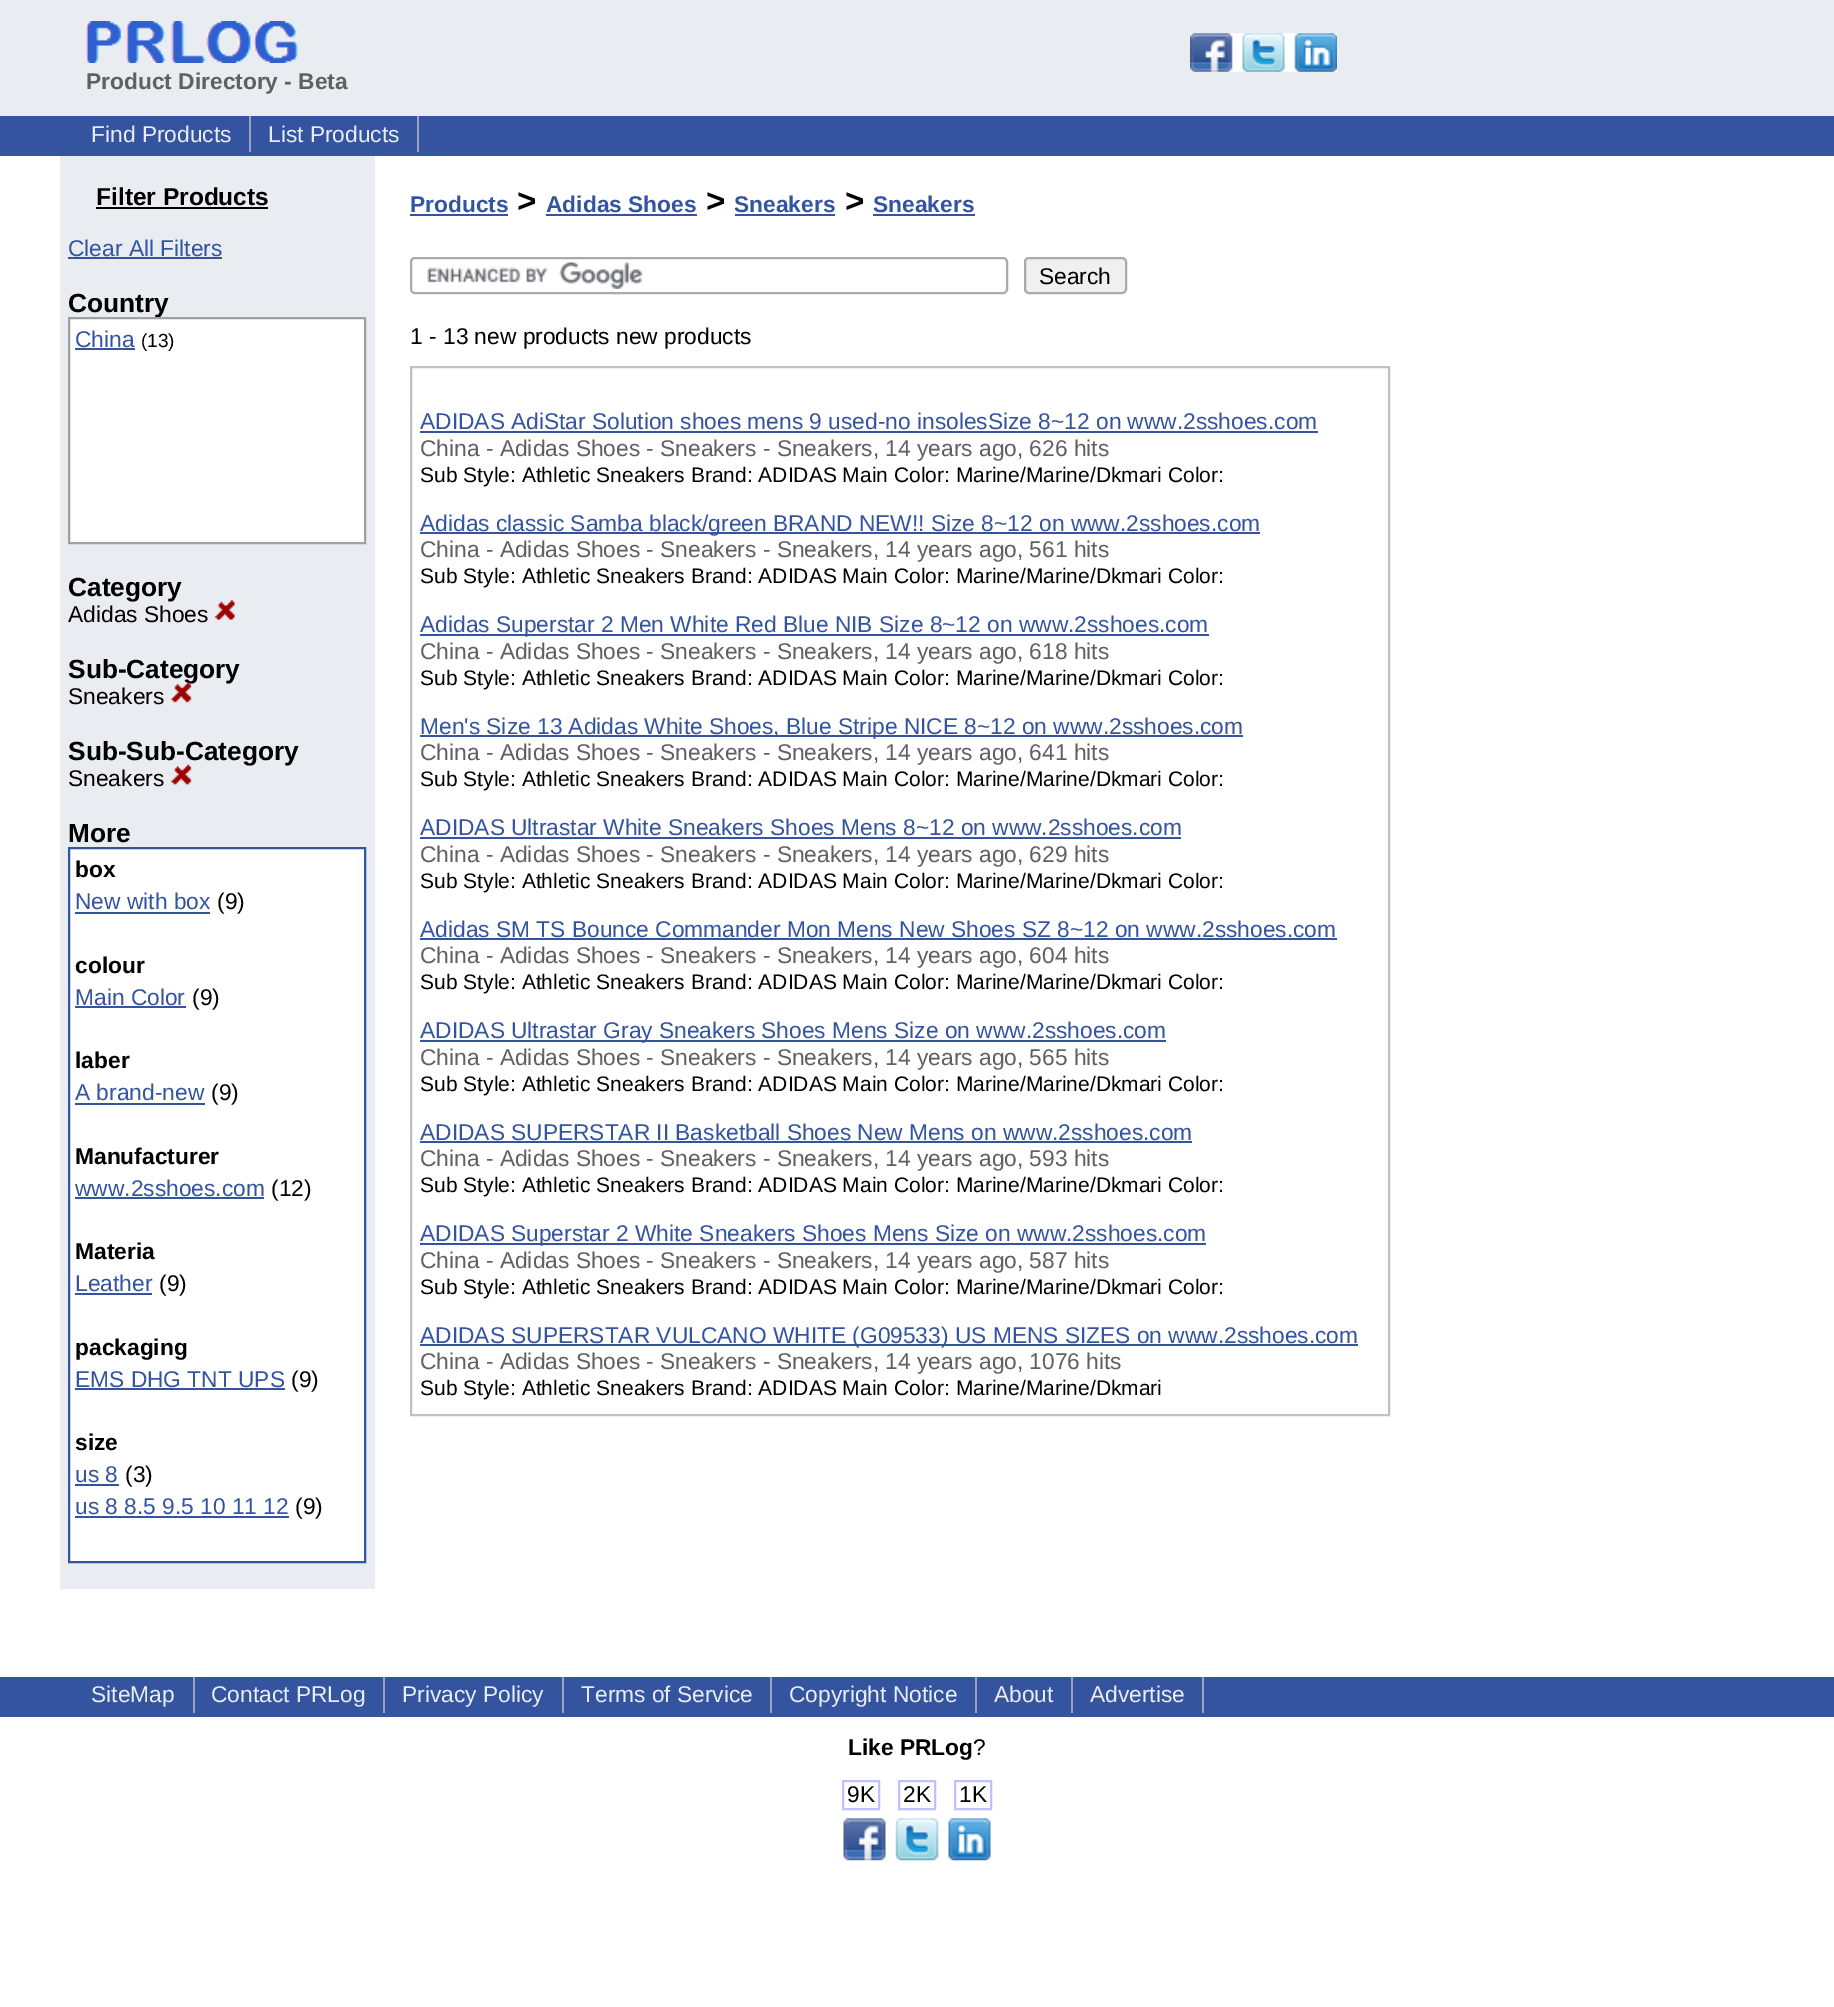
%!PS-Adobe-3.0
%%BoundingBox: 0 0 1834 2007
%%LanguageLevel: 3
%%Pages: 1
%%EndComments
%%BeginProlog
/m { moveto } bind def
/l { lineto } bind def
/h { closepath } bind def
/f { fill } bind def
/S { stroke } bind def
/q { gsave } bind def
/Q { grestore } bind def
/w { setlinewidth } bind def
/fn { [ exch dup neg 0 0 3 -1 roll 0 0 ] selectfont } def
/tx { moveto show } def
/bx { rectfill } def
/rr { 5 dict begin { /r /h /w /y /x } { exch def } forall
  x r add y moveto x w add y 2 copy h add r arct x w add y h add x 1 index r arct
  x y h add x y r arct x y 2 copy exch w add exch r arct closepath end } def
/im { 5 dict begin { /h /w /y /x /name } { exch def } forall
  gsave x y translate w h scale
  w h 8 [w 0 0 h 0 0] name (r) file false 3 colorimage grestore end } def
%%EndProlog
%%BeginSetup
<< /PageSize [1834 2007] >> setpagedevice
%%EndSetup
%%Page: 1 1
0 2007 translate 1 -1 scale
4 setmiterlimit
1 setgray
0 0 1834 2007 bx
0.914 0.929 0.949 setrgbcolor
0 0 1834 116 bx
(image0.raw) 1190 33 147 39 im
(image1.raw) 85 21 213 42 im
/LiberationSans-Bold 22.75 fn
0.376 setgray
(Product Directory - Beta) 86 89 tx
0.204 0.329 0.627 setrgbcolor
0 116 1834 40 bx
0.627 0.627 0.753 setrgbcolor
249 116 2 36 bx
/LiberationSans-Regular 22.75 fn
0.914 0.929 0.949 setrgbcolor
(Find Products) 91 142 tx
0.627 0.627 0.753 setrgbcolor
417 116 2 36 bx
0.914 0.929 0.949 setrgbcolor
(List Products) 268 142 tx
60 156 315 1433 bx
/LiberationSans-Bold 24.5 fn
0 setgray
(Filter Products) 96 205 tx
96 207 172 2 bx
/LiberationSans-Regular 22.75 fn
0.204 0.329 0.627 setrgbcolor
(Clear All Filters) 68 256 tx
68 257 154 2 bx
/LiberationSans-Bold 26.25 fn
0 setgray
(Country) 68 312 tx
1 setgray
69 318 m 365 318 l 365 543 l 69 543 l h q f Q
0.627 setgray
2 w
S
/LiberationSans-Regular 22.75 fn
0.204 0.329 0.627 setrgbcolor
(China) 75 347 tx
75 348 60 2 bx
/LiberationSans-Regular 19 fn
0 setgray
(\(13\)) 141 347 tx
/LiberationSans-Bold 26.25 fn
(Category) 68 596 tx
/LiberationSans-Regular 22.75 fn
(Adidas Shoes) 68 622 tx
(image2.raw) 215 600 20 20 im
/LiberationSans-Bold 26.25 fn
(Sub-Category) 68 678 tx
/LiberationSans-Regular 22.75 fn
(Sneakers) 68 704 tx
(image3.raw) 171 682 21 21 im
/LiberationSans-Bold 26.25 fn
(Sub-Sub-Category) 68 760 tx
/LiberationSans-Regular 22.75 fn
(Sneakers) 68 786 tx
(image4.raw) 171 764 21 21 im
/LiberationSans-Bold 26.25 fn
(More) 68 842 tx
1 setgray
69 848 m 365 848 l 365 1562 l 69 1562 l h q f Q
0.204 0.329 0.627 setrgbcolor
S
/LiberationSans-Bold 22.75 fn
0 setgray
(box) 75 877 tx
/LiberationSans-Regular 22.75 fn
0.204 0.329 0.627 setrgbcolor
(New with box) 75 909 tx
75 912 135 2 bx
0 setgray
(\(9\)) 217 909 tx
/LiberationSans-Bold 22.75 fn
(colour) 75 973 tx
/LiberationSans-Regular 22.75 fn
0.204 0.329 0.627 setrgbcolor
(Main Color) 75 1005 tx
75 1006 111 2 bx
0 setgray
(\(9\)) 192 1005 tx
/LiberationSans-Bold 22.75 fn
(laber) 75 1068 tx
/LiberationSans-Regular 22.75 fn
0.204 0.329 0.627 setrgbcolor
(A brand-new) 75 1100 tx
75 1103 130 2 bx
0 setgray
(\(9\)) 211 1100 tx
/LiberationSans-Bold 22.75 fn
(Manufacturer) 75 1164 tx
/LiberationSans-Regular 22.75 fn
0.204 0.329 0.627 setrgbcolor
(www.2sshoes.com) 75 1196 tx
75 1197 189 2 bx
0 setgray
(\(12\)) 271 1196 tx
/LiberationSans-Bold 22.75 fn
(Materia) 75 1259 tx
/LiberationSans-Regular 22.75 fn
0.204 0.329 0.627 setrgbcolor
(Leather) 75 1291 tx
75 1293 77 2 bx
0 setgray
(\(9\)) 159 1291 tx
/LiberationSans-Bold 22.75 fn
(packaging) 75 1355 tx
/LiberationSans-Regular 22.75 fn
0.204 0.329 0.627 setrgbcolor
(EMS DHG TNT UPS) 75 1387 tx
75 1388 210 2 bx
0 setgray
(\(9\)) 291 1387 tx
/LiberationSans-Bold 22.75 fn
(size) 75 1450 tx
/LiberationSans-Regular 22.75 fn
0.204 0.329 0.627 setrgbcolor
(us 8) 75 1482 tx
75 1484 44 2 bx
0 setgray
(\(3\)) 125 1482 tx
0.204 0.329 0.627 setrgbcolor
(us 8 8.5 9.5 10 11 12) 75 1514 tx
75 1516 214 2 bx
0 setgray
(\(9\)) 295 1514 tx
/LiberationSans-Bold 22.75 fn
0.204 0.329 0.627 setrgbcolor
(Products) 410 212 tx
410 214 98 2 bx
/LiberationSans-Bold 33 fn
0 setgray
(>) 517 212 tx
/LiberationSans-Bold 22.75 fn
0.204 0.329 0.627 setrgbcolor
(Adidas Shoes) 546 212 tx
546 214 151 2 bx
/LiberationSans-Bold 33 fn
0 setgray
(>) 706 212 tx
/LiberationSans-Bold 22.75 fn
0.204 0.329 0.627 setrgbcolor
(Sneakers) 734 212 tx
735 214 100 2 bx
/LiberationSans-Bold 33 fn
0 setgray
(>) 845 212 tx
/LiberationSans-Bold 22.75 fn
0.204 0.329 0.627 setrgbcolor
(Sneakers) 873 212 tx
873 214 102 2 bx
(image5.raw) 427 262 216 27 im
0.667 setgray
411 258 596 35 4 rr S
0.941 setgray
1025 258 101 35 4 rr q f Q
0.667 setgray
S
/LiberationSans-Regular 22.75 fn
0 setgray
(Search) 1039 284 tx
(1 - 13 new products new products) 410 344 tx
0.753 setgray
411 367 978 1048 rectstroke
0.204 0.329 0.627 setrgbcolor
(ADIDAS AdiStar Solution shoes mens 9 used-no insolesSize 8~12 on www.2sshoes.com) 420 429 tx
420 431 898 2 bx
0.376 setgray
(China - Adidas Shoes - Sneakers - Sneakers, 14 years ago, 626 hits) 420 456 tx
/LiberationSans-Regular 21 fn
0 setgray
(Sub Style: Athletic Sneakers Brand: ADIDAS Main Color: Marine/Marine/Dkmari Color:) 420 482 tx
0.204 0.329 0.627 setrgbcolor
420 532 840 2 bx
/LiberationSans-Regular 22.75 fn
(Adidas classic Samba black/green BRAND NEW!! Size 8~12 on www.2sshoes.com) 420 531 tx
0.376 setgray
(China - Adidas Shoes - Sneakers - Sneakers, 14 years ago, 561 hits) 420 557 tx
/LiberationSans-Regular 21 fn
0 setgray
(Sub Style: Athletic Sneakers Brand: ADIDAS Main Color: Marine/Marine/Dkmari Color:) 420 583 tx
0.204 0.329 0.627 setrgbcolor
420 634 789 2 bx
/LiberationSans-Regular 22.75 fn
(Adidas Superstar 2 Men White Red Blue NIB Size 8~12 on www.2sshoes.com) 420 632 tx
0.376 setgray
(China - Adidas Shoes - Sneakers - Sneakers, 14 years ago, 618 hits) 420 659 tx
/LiberationSans-Regular 21 fn
0 setgray
(Sub Style: Athletic Sneakers Brand: ADIDAS Main Color: Marine/Marine/Dkmari Color:) 420 685 tx
0.204 0.329 0.627 setrgbcolor
420 735 823 2 bx
/LiberationSans-Regular 22.75 fn
(Men's Size 13 Adidas White Shoes, Blue Stripe NICE 8~12 on www.2sshoes.com) 420 734 tx
0.376 setgray
(China - Adidas Shoes - Sneakers - Sneakers, 14 years ago, 641 hits) 420 760 tx
/LiberationSans-Regular 21 fn
0 setgray
(Sub Style: Athletic Sneakers Brand: ADIDAS Main Color: Marine/Marine/Dkmari Color:) 420 786 tx
/LiberationSans-Regular 22.75 fn
0.204 0.329 0.627 setrgbcolor
(ADIDAS Ultrastar White Sneakers Shoes Mens 8~12 on www.2sshoes.com) 420 835 tx
420 837 761 2 bx
0.376 setgray
(China - Adidas Shoes - Sneakers - Sneakers, 14 years ago, 629 hits) 420 862 tx
/LiberationSans-Regular 21 fn
0 setgray
(Sub Style: Athletic Sneakers Brand: ADIDAS Main Color: Marine/Marine/Dkmari Color:) 420 888 tx
/LiberationSans-Regular 22.75 fn
0.204 0.329 0.627 setrgbcolor
(Adidas SM TS Bounce Commander Mon Mens New Shoes SZ 8~12 on www.2sshoes.com) 420 937 tx
420 938 917 2 bx
0.376 setgray
(China - Adidas Shoes - Sneakers - Sneakers, 14 years ago, 604 hits) 420 963 tx
/LiberationSans-Regular 21 fn
0 setgray
(Sub Style: Athletic Sneakers Brand: ADIDAS Main Color: Marine/Marine/Dkmari Color:) 420 989 tx
0.204 0.329 0.627 setrgbcolor
420 1040 746 2 bx
/LiberationSans-Regular 22.75 fn
(ADIDAS Ultrastar Gray Sneakers Shoes Mens Size on www.2sshoes.com) 420 1038 tx
0.376 setgray
(China - Adidas Shoes - Sneakers - Sneakers, 14 years ago, 565 hits) 420 1065 tx
/LiberationSans-Regular 21 fn
0 setgray
(Sub Style: Athletic Sneakers Brand: ADIDAS Main Color: Marine/Marine/Dkmari Color:) 420 1091 tx
/LiberationSans-Regular 22.75 fn
0.204 0.329 0.627 setrgbcolor
(ADIDAS SUPERSTAR II Basketball Shoes New Mens on www.2sshoes.com) 420 1140 tx
420 1141 772 2 bx
0.376 setgray
(China - Adidas Shoes - Sneakers - Sneakers, 14 years ago, 593 hits) 420 1166 tx
/LiberationSans-Regular 21 fn
0 setgray
(Sub Style: Athletic Sneakers Brand: ADIDAS Main Color: Marine/Marine/Dkmari Color:) 420 1192 tx
0.204 0.329 0.627 setrgbcolor
420 1243 786 2 bx
/LiberationSans-Regular 22.75 fn
(ADIDAS Superstar 2 White Sneakers Shoes Mens Size on www.2sshoes.com) 420 1241 tx
0.376 setgray
(China - Adidas Shoes - Sneakers - Sneakers, 14 years ago, 587 hits) 420 1268 tx
/LiberationSans-Regular 21 fn
0 setgray
(Sub Style: Athletic Sneakers Brand: ADIDAS Main Color: Marine/Marine/Dkmari Color:) 420 1294 tx
0.204 0.329 0.627 setrgbcolor
420 1344 938 2 bx
/LiberationSans-Regular 22.75 fn
(ADIDAS SUPERSTAR VULCANO WHITE \(G09533\) US MENS SIZES on www.2sshoes.com) 420 1343 tx
0.376 setgray
(China - Adidas Shoes - Sneakers - Sneakers, 14 years ago, 1076 hits) 420 1369 tx
/LiberationSans-Regular 21 fn
0 setgray
(Sub Style: Athletic Sneakers Brand: ADIDAS Main Color: Marine/Marine/Dkmari) 420 1395 tx
0.204 0.329 0.627 setrgbcolor
0 1677 1834 40 bx
0.627 0.627 0.753 setrgbcolor
193 1677 2 36 bx
/LiberationSans-Regular 22.75 fn
0.914 0.929 0.949 setrgbcolor
(SiteMap) 91 1702 tx
0.627 0.627 0.753 setrgbcolor
383 1677 2 36 bx
0.914 0.929 0.949 setrgbcolor
(Contact PRLog) 211 1702 tx
0.627 0.627 0.753 setrgbcolor
562 1677 2 36 bx
0.914 0.929 0.949 setrgbcolor
(Privacy Policy) 402 1702 tx
0.627 0.627 0.753 setrgbcolor
770 1677 2 36 bx
0.914 0.929 0.949 setrgbcolor
(Terms of Service) 581 1702 tx
0.627 0.627 0.753 setrgbcolor
975 1677 2 36 bx
0.914 0.929 0.949 setrgbcolor
(Copyright Notice) 789 1702 tx
0.627 0.627 0.753 setrgbcolor
1071 1677 2 36 bx
0.914 0.929 0.949 setrgbcolor
(About) 994 1702 tx
0.627 0.627 0.753 setrgbcolor
1202 1677 2 36 bx
0.914 0.929 0.949 setrgbcolor
(Advertise) 1090 1702 tx
/LiberationSans-Bold 22.75 fn
0 setgray
(Like PRLog) 848 1755 tx
/LiberationSans-Regular 22.75 fn
(?) 973 1755 tx
0.753 0.753 1 setrgbcolor
843 1781 36 28 rectstroke
0 setgray
(9K) 847 1802 tx
0.753 0.753 1 setrgbcolor
899 1781 36 28 rectstroke
0 setgray
(2K) 903 1802 tx
0.753 0.753 1 setrgbcolor
955 1781 36 28 rectstroke
0 setgray
(1K) 959 1802 tx
(image6.raw) 843 1818 148 43 im
showpage
%%EOF
